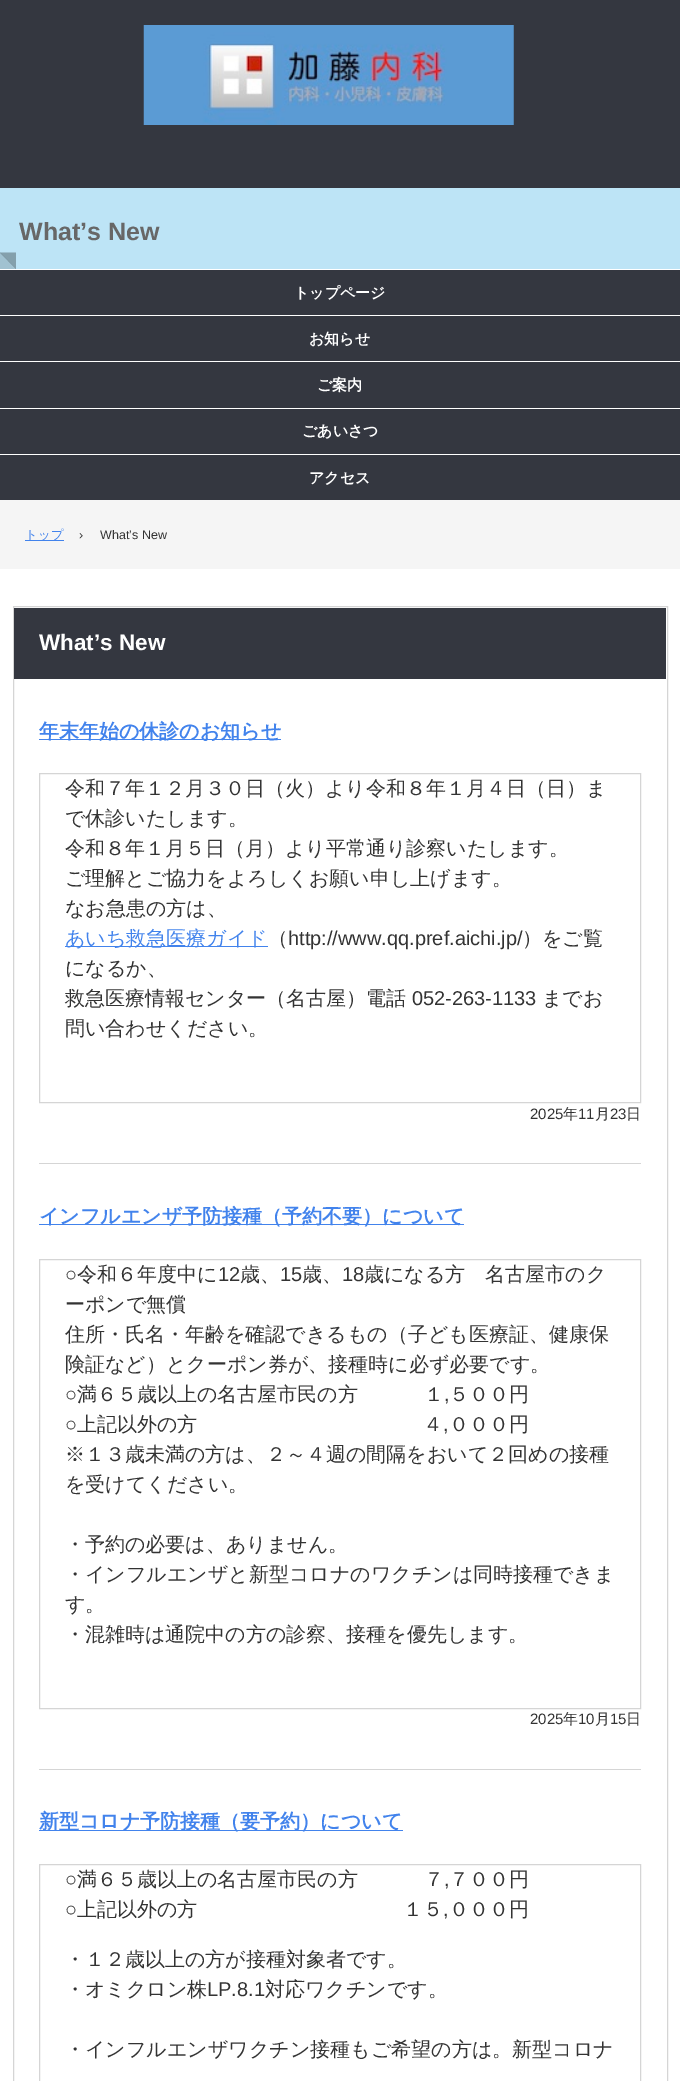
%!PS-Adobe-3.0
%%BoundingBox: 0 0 680 2081
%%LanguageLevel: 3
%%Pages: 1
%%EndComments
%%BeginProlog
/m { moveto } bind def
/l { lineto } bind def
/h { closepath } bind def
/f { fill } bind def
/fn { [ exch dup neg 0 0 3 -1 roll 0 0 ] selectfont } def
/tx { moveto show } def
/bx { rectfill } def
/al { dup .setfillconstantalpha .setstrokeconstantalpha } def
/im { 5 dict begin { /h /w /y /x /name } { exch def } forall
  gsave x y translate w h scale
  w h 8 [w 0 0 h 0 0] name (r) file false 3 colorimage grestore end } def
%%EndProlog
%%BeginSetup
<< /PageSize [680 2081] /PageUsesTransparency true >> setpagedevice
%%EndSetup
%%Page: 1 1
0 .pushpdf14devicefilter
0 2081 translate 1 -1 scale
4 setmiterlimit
1 setgray
0 0 680 2081 bx
0.204 0.216 0.251 setrgbcolor
0 0 680 188 bx
(image0.raw) 143 25 371 100 im
0.741 0.894 0.965 setrgbcolor
0 188 680 81 bx
/LiberationSans-Bold 25 fn
0.404 setgray
(What’s New) 19 240 tx
0.518 0.627 0.675 setrgbcolor
16 252.5 m 16 269 l 0 252.5 l h f
0.15 al
0 setgray
16 269 m 0 269 l 0 252.5 l h f
1 al
0.204 0.216 0.251 setrgbcolor
0 270 680 45 bx
/WenQuanYiZenHei-Bold 15 fn
1 setgray
(トップページ) 294 298 tx
0.204 0.216 0.251 setrgbcolor
0 316 680 45 bx
1 setgray
(お知らせ) 309 344 tx
0.204 0.216 0.251 setrgbcolor
0 362 680 46 bx
1 setgray
(ご案内) 317 390 tx
0.204 0.216 0.251 setrgbcolor
0 409 680 45 bx
1 setgray
(ごあいさつ) 302 436 tx
0.204 0.216 0.251 setrgbcolor
0 455 680 45 bx
1 setgray
(アクセス) 309 483 tx
0.961 setgray
0 500 680 69 bx
0.259 0.514 0.925 setrgbcolor
25 540 39 1 bx
/WenQuanYiZenHei-Medium 12.5 fn
(トップ) 25 539 tx
/LiberationSans-Regular 12.5 fn
0.2 setgray
(›) 79 539 tx
(What’s New) 100 539 tx
0.835 setgray
13.5 606.5 654 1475 rectstroke
0.204 0.216 0.251 setrgbcolor
14 608 652 71 bx
/LiberationSans-Bold 22.5 fn
1 setgray
(What’s New) 39 650 tx
0.835 setgray
39 1163 602 1 bx
0.259 0.514 0.925 setrgbcolor
39 739 242 1 bx
/WenQuanYiZenHei-Bold 20 fn
(年末年始の休診のお知らせ) 39 738 tx
0.835 setgray
39.5 773.5 601 329 rectstroke
/WenQuanYiZenHei-Medium 20 fn
0.2 setgray
(令和７年１２月３０日（火）より令和８年１月４日（日）ま) 65 795 tx
(で休診いたします。) 65 825 tx
(令和８年１月５日（月）より平常通り診察いたします。) 65 855 tx
(ご理解とご協力をよろしくお願い申し上げます。) 65 885 tx
(なお急患の方は、) 65 915 tx
0.259 0.514 0.925 setrgbcolor
65 946 203 1 bx
(あいち救急医療ガイド) 65 945 tx
0.2 setgray
(（) 268 945 tx
/LiberationSans-Regular 20 fn
(http://www.qq.pref.aichi.jp/) 288 945 tx
/WenQuanYiZenHei-Medium 20 fn
(）をご覧) 522 945 tx
(になるか、) 65 975 tx
(救急医療情報センター（名古屋）電話) 65 1005 tx
/LiberationSans-Regular 20 fn
(052-263-1133) 412 1005 tx
/WenQuanYiZenHei-Medium 20 fn
(までお) 542 1005 tx
(問い合わせください。) 65 1035 tx
/LiberationSans-Regular 15 fn
(2025) 530 1119 tx
/WenQuanYiZenHei-Medium 15 fn
(年) 563 1119 tx
/LiberationSans-Regular 15 fn
(11) 578 1119 tx
/WenQuanYiZenHei-Medium 15 fn
(月) 595 1119 tx
/LiberationSans-Regular 15 fn
(23) 610 1119 tx
/WenQuanYiZenHei-Medium 15 fn
(日) 626 1119 tx
0.835 setgray
39 1769 602 1 bx
0.259 0.514 0.925 setrgbcolor
39 1224 425 1 bx
/WenQuanYiZenHei-Bold 20 fn
(インフルエンザ予防接種（予約不要）について) 39 1223 tx
0.835 setgray
39.5 1259.5 601 449 rectstroke
/LiberationSans-Regular 20 fn
0.2 setgray
(○) 65 1281 tx
/WenQuanYiZenHei-Medium 20 fn
(令和６年度中に) 77 1281 tx
/LiberationSans-Regular 20 fn
(12) 218 1281 tx
/WenQuanYiZenHei-Medium 20 fn
(歳、) 240 1281 tx
/LiberationSans-Regular 20 fn
(15) 280 1281 tx
/WenQuanYiZenHei-Medium 20 fn
(歳、) 302 1281 tx
/LiberationSans-Regular 20 fn
(18) 342 1281 tx
/WenQuanYiZenHei-Medium 20 fn
(歳になる方　名古屋市のク) 364 1281 tx
(ーポンで無償) 65 1311 tx
(住所・氏名・年齢を確認できるもの（子ども医療証、健康保) 65 1341 tx
(険証など）とクーポン券が、接種時に必ず必要です。) 65 1371 tx
/LiberationSans-Regular 20 fn
(○) 65 1401 tx
/WenQuanYiZenHei-Medium 20 fn
(満６５歳以上の名古屋市民の方　 　　１) 77 1401 tx
(５００円) 449 1401 tx
/LiberationSans-Regular 20 fn
(,) 444 1401 tx
(○) 65 1431 tx
/WenQuanYiZenHei-Medium 20 fn
(上記以外の方　　　　　　　　　 　　４) 77 1431 tx
(０００円) 449 1431 tx
/LiberationSans-Regular 20 fn
(,) 443 1431 tx
/WenQuanYiZenHei-Medium 20 fn
(※１３歳未満の方は、２～４週の間隔をおいて２回めの接種) 65 1461 tx
(を受けてください。) 65 1491 tx
(・予約の必要は、ありません。) 65 1551 tx
(・インフルエンザと新型コロナのワクチンは同時接種できま) 65 1581 tx
(す。) 65 1611 tx
(・混雑時は通院中の方の診察、接種を優先します。) 65 1641 tx
/LiberationSans-Regular 15 fn
(2025) 530 1724 tx
/WenQuanYiZenHei-Medium 15 fn
(年) 563 1724 tx
/LiberationSans-Regular 15 fn
(10) 578 1724 tx
/WenQuanYiZenHei-Medium 15 fn
(月) 595 1724 tx
/LiberationSans-Regular 15 fn
(15) 610 1724 tx
/WenQuanYiZenHei-Medium 15 fn
(日) 626 1724 tx
0.259 0.514 0.925 setrgbcolor
39 1830 364 1 bx
/WenQuanYiZenHei-Bold 20 fn
(新型コロナ予防接種（要予約）について) 39 1828 tx
0.835 setgray
39.5 1864.5 601 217 rectstroke
/LiberationSans-Regular 20 fn
0.2 setgray
(○) 65 1886 tx
/WenQuanYiZenHei-Medium 20 fn
(満６５歳以上の名古屋市民の方　 　　７) 77 1886 tx
(７００円) 449 1886 tx
/LiberationSans-Regular 20 fn
(,) 444 1886 tx
(○) 65 1916 tx
/WenQuanYiZenHei-Medium 20 fn
(上記以外の方　　　　　　　　　 　１５) 77 1916 tx
(０００円) 449 1916 tx
/LiberationSans-Regular 20 fn
(,) 443 1916 tx
/WenQuanYiZenHei-Medium 20 fn
(・１２歳以上の方が接種対象者です。) 65 1966 tx
(・オミクロン株) 65 1996 tx
/LiberationSans-Regular 20 fn
(LP.8.1) 207 1996 tx
/WenQuanYiZenHei-Medium 20 fn
(対応ワクチンです。) 265 1996 tx
(・インフルエンザワクチン接種もご希望の方は。新型コロナ) 65 2056 tx
.poppdf14devicefilter showpage
%%EOF
